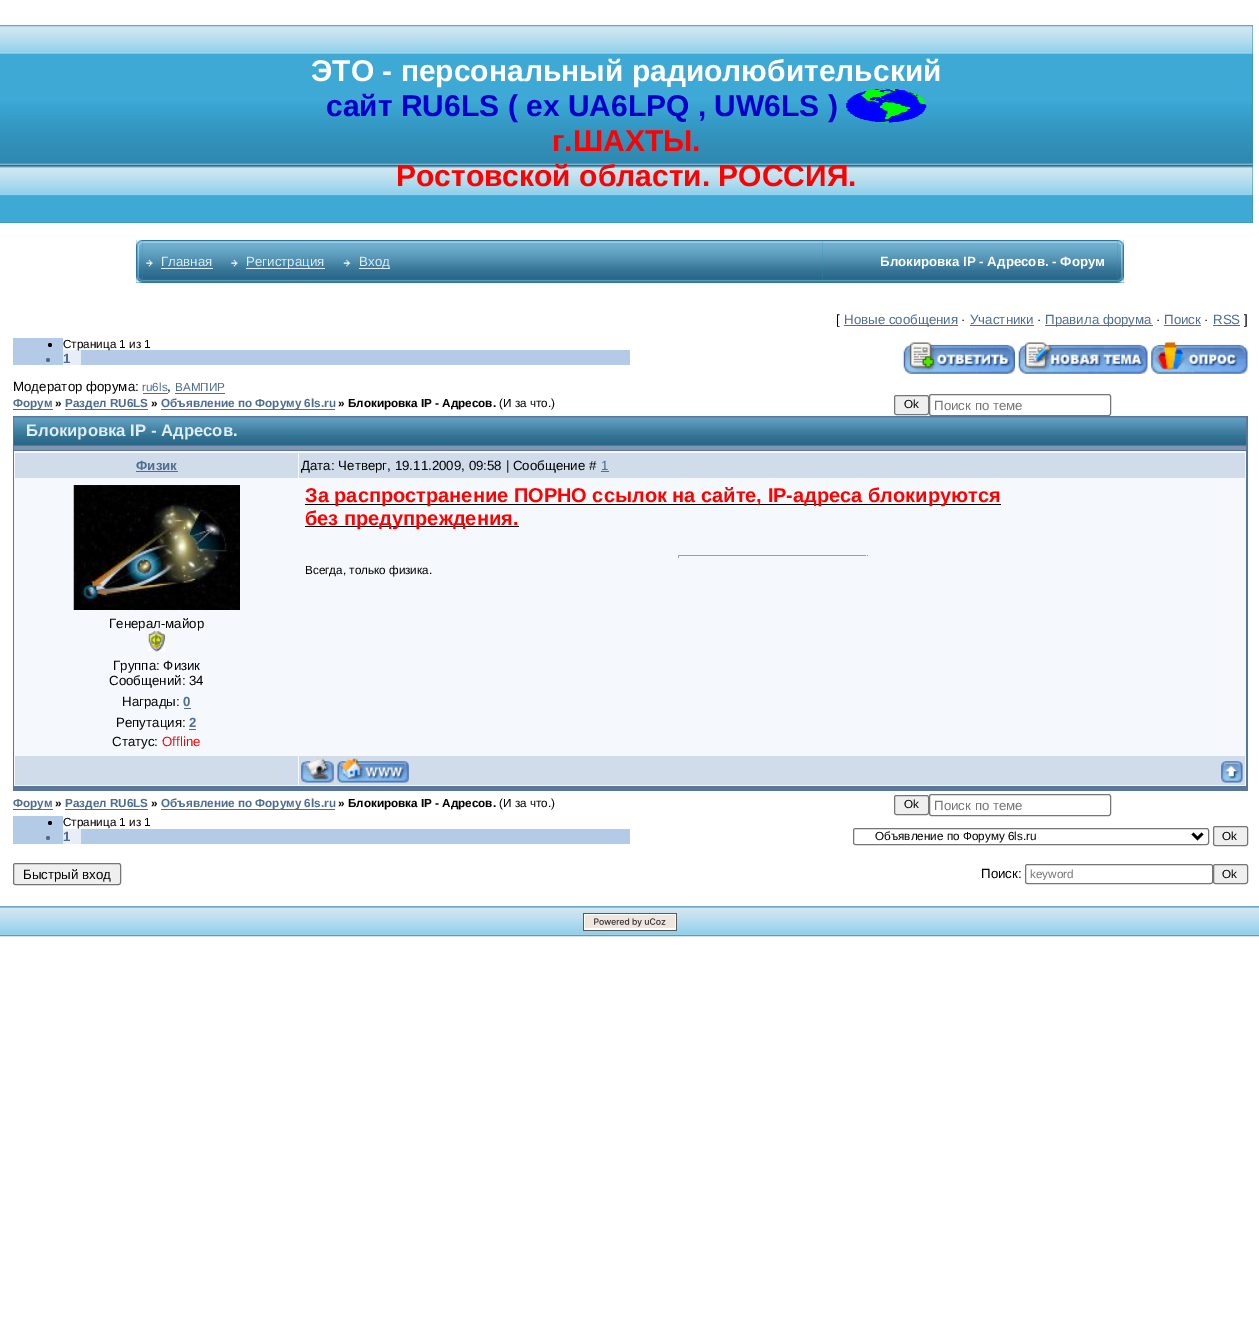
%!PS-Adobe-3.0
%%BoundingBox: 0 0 1259 1338
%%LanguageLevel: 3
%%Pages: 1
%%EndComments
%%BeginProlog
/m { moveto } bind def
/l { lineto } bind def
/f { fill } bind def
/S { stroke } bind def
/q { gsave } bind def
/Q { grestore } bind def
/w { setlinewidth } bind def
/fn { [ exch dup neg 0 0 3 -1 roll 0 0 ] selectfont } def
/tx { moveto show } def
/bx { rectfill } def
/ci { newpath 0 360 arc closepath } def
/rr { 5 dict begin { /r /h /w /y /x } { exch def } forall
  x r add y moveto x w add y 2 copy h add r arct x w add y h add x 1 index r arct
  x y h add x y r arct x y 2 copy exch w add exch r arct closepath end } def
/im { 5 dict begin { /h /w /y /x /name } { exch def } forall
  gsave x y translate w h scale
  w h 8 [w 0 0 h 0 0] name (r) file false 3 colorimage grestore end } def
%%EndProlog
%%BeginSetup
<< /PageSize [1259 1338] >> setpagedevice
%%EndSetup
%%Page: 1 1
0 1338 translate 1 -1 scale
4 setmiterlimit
1 setgray
0 0 1259 1338 bx
0.192 0.557 0.718 setrgbcolor
0 25 1253 198 bx
(image0.raw) 0 25 1253 198 im
/LiberationSans-Bold 30 fn
1 setgray
(ЭТО - персональный радиолюбительский) 311 81 tx
0 0 0.804 setrgbcolor
(сайт RU6LS \( еx UA6LPQ , UW6LS \)) 326 116 tx
(image1.raw) 846 88 81 35 im
1 0 0 setrgbcolor
(г.ШАХТЫ.) 552 151 tx
(Ростовской области. РОССИЯ.) 396 186 tx
0.192 0.557 0.718 setrgbcolor
136 240 988 43 bx
(image3.raw) 142 240 681 43 im
(image2.raw) 136 240 7 43 im
(image4.raw) 146 259 7 8 im
/LiberationSans-Regular 13.3 fn
0.867 0.933 0.969 setrgbcolor
(Главная) 161 266 tx
161 268 52 1 bx
(image4.raw) 231 259 7 8 im
246 268 79 1 bx
(Регистрация) 246 266 tx
(image5.raw) 343 259 8 8 im
359 268 31 1 bx
(Вход) 359 266 tx
(image6.raw) 822 240 296 43 im
/LiberationSans-Bold 13.3 fn
1 setgray
(Блокировка IP - Адресов. - Форум) 880 266 tx
(image7.raw) 1117 240 7 43 im
/LiberationSans-Regular 13.3 fn
0 setgray
([) 836 324 tx
0.302 0.427 0.569 setrgbcolor
844 325 114 1 bx
(Новые сообщения) 844 324 tx
0 setgray
(·) 961 324 tx
0.302 0.427 0.569 setrgbcolor
(Участники) 970 324 tx
970 325 64 1 bx
0 setgray
(·) 1037 324 tx
0.302 0.427 0.569 setrgbcolor
1045 325 108 1 bx
(Правила форума) 1045 324 tx
0 setgray
(·) 1156 324 tx
0.302 0.427 0.569 setrgbcolor
(Поиск) 1164 324 tx
1164 325 37 1 bx
0 setgray
(·) 1204 324 tx
0.302 0.427 0.569 setrgbcolor
(RSS) 1213 324 tx
1213 325 27 1 bx
0 setgray
(]) 1244 324 tx
0.706 0.796 0.906 setrgbcolor
13 338 617 27 bx
1 setgray
63 338 567 12 bx
0 setgray
50 345 2 ci f
0.906 0.933 0.973 setrgbcolor
63 350 18 15 bx
/LiberationSans-Regular 11.7 fn
0 setgray
(Страница 1 из 1) 63 348 tx
0.302 0.427 0.569 setrgbcolor
48 360 2 ci f
/LiberationSans-Bold 13.3 fn
(1) 63 363 tx
(image8.raw) 903 342 112 32 im
(image9.raw) 1018 342 130 32 im
(image10.raw) 1151 342 97 32 im
/LiberationSans-Regular 13.3 fn
0 setgray
(Модератор форума:) 13 391 tx
/LiberationSans-Regular 11.7 fn
0.302 0.427 0.569 setrgbcolor
(ru6ls) 142 391 tx
/LiberationSans-Regular 13.3 fn
0 setgray
(,) 167 391 tx
0.302 0.427 0.569 setrgbcolor
143 393 25 1 bx
175 393 50 1 bx
/LiberationSans-Regular 11.7 fn
(ВАМПИР) 175 391 tx
13 409 40 1 bx
/LiberationSans-Bold 11.7 fn
(Форум) 13 407 tx
0 setgray
(») 55 407 tx
0.302 0.427 0.569 setrgbcolor
65 409 83 1 bx
(Раздел RU6LS) 65 407 tx
0 setgray
(») 151 407 tx
0.302 0.427 0.569 setrgbcolor
161 409 174 1 bx
(Объявление по Форуму 6ls.ru) 161 407 tx
0 setgray
(» Блокировка IP - Адресов.) 338 407 tx
/LiberationSans-Regular 11.7 fn
(\(И за что.\)) 499 407 tx
0.937 setgray
894.5 395.5 34 19 2 rr q f Q
0.463 setgray
S
0 setgray
(Ok) 904 408 tx
0.463 setgray
929.5 394.5 181 21 2 rr S
/LiberationSans-Regular 13.3 fn
0.459 setgray
(Поиск по теме) 934 410 tx
0.349 0.467 0.596 setrgbcolor
13 416 1235 375 bx
(image11.raw) 13 417 1234 28 im
/LiberationSans-Bold 16.7 fn
0.867 0.933 0.969 setrgbcolor
(Блокировка IP - Адресов.) 26 436 tx
0.514 0.58 0.698 setrgbcolor
14 446 1232 4 bx
0.961 0.976 0.992 setrgbcolor
14 451 1232 335 bx
0.82 0.863 0.922 setrgbcolor
15 453 283 25 bx
/LiberationSans-Bold 13.3 fn
0.302 0.427 0.569 setrgbcolor
(Физик) 136 470 tx
136 471 42 1 bx
0.82 0.863 0.922 setrgbcolor
299 453 946 25 bx
/LiberationSans-Regular 13.3 fn
0 setgray
(Дата: Четверг, 19.11.2009, 09:58 | Сообщение #) 301 470 tx
0.302 0.427 0.569 setrgbcolor
(1) 601 470 tx
601 471 8 1 bx
0 setgray
305 504 696 1 bx
/LiberationSans-Bold 20 fn
1 0 0 setrgbcolor
(За распространение ПОРНО ссылок на сайте, IP-адреса блокируются) 305 502 tx
0 setgray
305 526 214 1 bx
1 0 0 setrgbcolor
(без предупреждения.) 305 525 tx
0.624 setgray
678 555 190 1 bx
0.933 setgray
866 555 1 3 bx
0.624 setgray
678 555 1 3 bx
/LiberationSans-Regular 11.7 fn
0 setgray
(Всегда, только физика.) 305 574 tx
(image12.raw) 73 485 167 125 im
/LiberationSans-Regular 13.3 fn
(Генерал-майор) 109 628 tx
(image13.raw) 148 631 17 21 im
(Группа: Физик) 113 670 tx
(Сообщений: 34) 109 685 tx
(Награды:) 122 706 tx
/LiberationSans-Bold 13.3 fn
0.302 0.427 0.569 setrgbcolor
(0) 183 706 tx
184 708 7 1 bx
/LiberationSans-Regular 13.3 fn
0 setgray
(Репутация:) 116 727 tx
/LiberationSans-Bold 13.3 fn
0.302 0.427 0.569 setrgbcolor
(2) 189 727 tx
189 729 7 1 bx
/LiberationSans-Regular 13.3 fn
0 setgray
(Статус:) 112 746 tx
1 0 0 setrgbcolor
(Offline) 162 746 tx
0.82 0.863 0.922 setrgbcolor
15 756 283 29 bx
299 756 946 29 bx
(image14.raw) 301 758 33 25 im
(image15.raw) 337 758 72 25 im
(image16.raw) 1221 761 22 22 im
0.302 0.427 0.569 setrgbcolor
13 809 40 1 bx
/LiberationSans-Bold 11.7 fn
(Форум) 13 807 tx
0 setgray
(») 55 807 tx
0.302 0.427 0.569 setrgbcolor
65 809 83 1 bx
(Раздел RU6LS) 65 807 tx
0 setgray
(») 151 807 tx
0.302 0.427 0.569 setrgbcolor
161 809 174 1 bx
(Объявление по Форуму 6ls.ru) 161 807 tx
0 setgray
(» Блокировка IP - Адресов.) 338 807 tx
/LiberationSans-Regular 11.7 fn
(\(И за что.\)) 499 807 tx
0.937 setgray
894.5 795.5 34 19 2 rr q f Q
0.463 setgray
S
0 setgray
(Ok) 904 808 tx
0.463 setgray
929.5 794.5 181 21 2 rr S
/LiberationSans-Regular 13.3 fn
0.459 setgray
(Поиск по теме) 934 810 tx
0.706 0.796 0.906 setrgbcolor
13 816 617 28 bx
1 setgray
63 816 567 13 bx
0 setgray
50 823 2 ci f
/LiberationSans-Regular 11.7 fn
(Страница 1 из 1) 63 826 tx
0.906 0.933 0.973 setrgbcolor
63 829 18 15 bx
0.302 0.427 0.569 setrgbcolor
48 838 2 ci f
/LiberationSans-Bold 13.3 fn
(1) 63 841 tx
0.463 setgray
853.5 828.5 355 16 2 rr S
0 setgray
2.5 w
1192.5 833.5 m 1197.5 838.5 l 1202.5 833.5 l S
/LiberationSans-Regular 11.7 fn
(Объявление по Форуму 6ls.ru) 875 840 tx
0.937 setgray
1213.5 826.5 34 19 2 rr q f Q
0.463 setgray
1 w
S
0 setgray
(Ok) 1222 840 tx
0.937 setgray
13.5 863.5 107 21 2 rr q f Q
0.463 setgray
S
/LiberationSans-Regular 13.3 fn
0 setgray
(Быстрый вход) 23 879 tx
(Поиск:) 981 878 tx
0.463 setgray
1025.5 864.5 187 19 2 rr S
q
1030 868 178 12 rectclip
/LiberationSans-Regular 11.7 fn
0.459 setgray
(keyword) 1030 878 tx
Q
0.937 setgray
1213.5 864.5 34 19 2 rr q f Q
0.463 setgray
S
/LiberationSans-Regular 11.7 fn
0 setgray
(Ok) 1222 878 tx
(image17.raw) 0 906 1259 31 im
(image18.raw) 583 913 94 18 im
showpage
%%EOF
